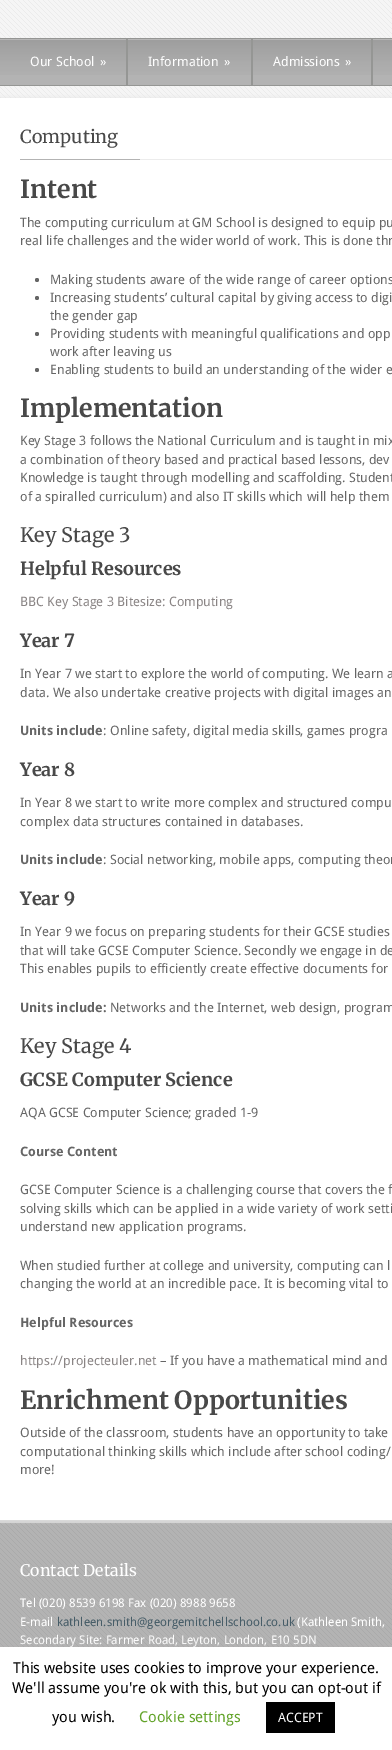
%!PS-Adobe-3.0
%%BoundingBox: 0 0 392 1750
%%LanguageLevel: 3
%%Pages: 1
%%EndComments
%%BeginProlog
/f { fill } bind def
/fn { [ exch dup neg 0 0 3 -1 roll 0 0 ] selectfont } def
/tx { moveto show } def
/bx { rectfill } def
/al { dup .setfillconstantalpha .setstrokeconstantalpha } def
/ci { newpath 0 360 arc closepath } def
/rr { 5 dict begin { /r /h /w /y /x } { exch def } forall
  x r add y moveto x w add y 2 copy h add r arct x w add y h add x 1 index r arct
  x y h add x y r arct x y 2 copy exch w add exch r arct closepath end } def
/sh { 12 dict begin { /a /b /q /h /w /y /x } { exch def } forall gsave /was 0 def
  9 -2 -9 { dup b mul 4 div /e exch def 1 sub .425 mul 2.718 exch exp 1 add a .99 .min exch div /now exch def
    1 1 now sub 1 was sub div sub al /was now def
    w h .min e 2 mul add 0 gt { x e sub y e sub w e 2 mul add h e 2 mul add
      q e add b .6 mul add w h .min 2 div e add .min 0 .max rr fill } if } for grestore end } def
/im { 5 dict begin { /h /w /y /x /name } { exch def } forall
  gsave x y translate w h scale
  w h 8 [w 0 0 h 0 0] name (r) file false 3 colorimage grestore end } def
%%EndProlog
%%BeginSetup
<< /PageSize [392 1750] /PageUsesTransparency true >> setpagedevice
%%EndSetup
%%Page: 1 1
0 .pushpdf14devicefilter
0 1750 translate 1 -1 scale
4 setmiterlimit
0.961 setgray
0 0 392 1750 bx
(image0.raw) 0 0 392 98 im
0.702 setgray
0 39 126 46 bx
(image1.raw) 0 39 10 36 im
0.584 0.588 0.58 setrgbcolor
0 38 392 1 bx
0 85 392 1 bx
(image2.raw) 10 39 116 36 im
126 39 2 46 bx
/DroidSans-Regular 13 fn
1 setgray
(Our School) 30 66 tx
(») 100 66 tx
0.702 setgray
128 39 123 46 bx
(image3.raw) 128 39 123 36 im
0.584 0.588 0.58 setrgbcolor
251 39 2 46 bx
1 setgray
(Information) 148 66 tx
(») 224 66 tx
0.702 setgray
253 39 118 46 bx
(image4.raw) 253 39 118 36 im
0.584 0.588 0.58 setrgbcolor
371 39 2 46 bx
1 setgray
(Admissions) 273 66 tx
(») 345 66 tx
0.702 setgray
373 39 19 46 bx
(image5.raw) 373 39 19 36 im
0.824 setgray
0 1520 392 3 bx
0.702 setgray
0 1523 392 124 bx
(image6.raw) 0 1523 392 124 im
0.898 setgray
0 98 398 1422 0 2 1 sh
1 setgray
0 98 392 1422 bx
0.702 setgray
20 159 120 1 bx
/Merriweather-Regular 18 fn
0.286 setgray
(Computing) 20 143 tx
0.925 setgray
140 159 252 1 bx
/Merriweather-Bold 25 fn
0.286 setgray
(Intent) 20 198 tx
/DroidSans-Regular 13 fn
0.4 setgray
(The computing curriculum at GM School is designed to equip pu) 20 227 tx
(real life challenges and the wider world of work. This is done thr) 20 245 tx
37 280 2 ci f
(Making students aware of the wide range of career options) 50 284 tx
37 298 2 ci f
(Increasing students’ cultural capital by giving access to digi) 50 302 tx
(the gender gap) 50 320 tx
37 334 2 ci f
(Providing students with meaningful qualifications and opp) 50 338 tx
(work after leaving us) 50 356 tx
37 370 2 ci f
(Enabling students to build an understanding of the wider e) 50 374 tx
/Merriweather-Bold 25 fn
0.286 setgray
(Implementation) 20 417 tx
/DroidSans-Regular 13 fn
0.4 setgray
(Key Stage 3 follows the National Curriculum and is taught in mix) 20 445 tx
(a combination of theory based and practical based lessons, dev) 20 464 tx
(Knowledge is taught through modelling and scaffolding. Student) 20 482 tx
(of a spiralled curriculum\) and also IT skills which will help them) 20 501 tx
/Merriweather-Regular 20 fn
0.286 setgray
(Key Stage 3) 20 542 tx
/Merriweather-Bold 18 fn
(Helpful Resources) 20 575 tx
/DroidSans-Regular 13 fn
0.541 0.522 0.522 setrgbcolor
(BBC Key Stage 3 Bitesize: Computing) 20 606 tx
/Merriweather-Bold 18 fn
0.286 setgray
(Year 7) 20 647 tx
/DroidSans-Regular 13 fn
0.4 setgray
(In Year 7 we start to explore the world of computing. We learn a) 20 678 tx
(data. We also undertake creative projects with digital images an) 20 697 tx
/DroidSans-Bold 13 fn
(Units include) 20 735 tx
/DroidSans-Regular 13 fn
(: Online safety, digital media skills, games progra) 103 735 tx
/Merriweather-Bold 18 fn
0.286 setgray
(Year 8) 20 776 tx
/DroidSans-Regular 13 fn
0.4 setgray
(In Year 8 we start to write more complex and structured compu) 20 807 tx
(complex data structures contained in databases.) 20 826 tx
/DroidSans-Bold 13 fn
(Units include) 20 864 tx
/DroidSans-Regular 13 fn
(: Social networking, mobile apps, computing theor) 103 864 tx
/Merriweather-Bold 18 fn
0.286 setgray
(Year 9) 20 905 tx
/DroidSans-Regular 13 fn
0.4 setgray
(In Year 9 we focus on preparing students for their GCSE studies) 20 936 tx
(that will take GCSE Computer Science. Secondly we engage in de) 20 955 tx
(This enables pupils to efficiently create effective documents for) 20 973 tx
/DroidSans-Bold 13 fn
(Units include:) 20 1012 tx
/DroidSans-Regular 13 fn
(Networks and the Internet, web design, program) 110 1012 tx
/Merriweather-Regular 20 fn
0.286 setgray
(Key Stage 4) 20 1053 tx
/Merriweather-Bold 18 fn
(GCSE Computer Science) 20 1086 tx
/DroidSans-Regular 13 fn
0.4 setgray
(AQA GCSE Computer Science; graded 1-9) 20 1117 tx
/DroidSans-Bold 13 fn
(Course Content) 20 1156 tx
/DroidSans-Regular 13 fn
(GCSE Computer Science is a challenging course that covers the f) 20 1194 tx
(solving skills which can be applied in a wide variety of work setti) 20 1213 tx
(understand new application programs.) 20 1231 tx
(When studied further at college and university, computing can l) 20 1270 tx
(changing the world at an incredible pace. It is becoming vital to) 20 1288 tx
/DroidSans-Bold 13 fn
(Helpful Resources) 20 1327 tx
/DroidSans-Regular 13 fn
0.541 0.522 0.522 setrgbcolor
(https://projecteuler.net) 20 1365 tx
0.4 setgray
(– If you have a mathematical mind and) 160 1365 tx
/Merriweather-Bold 25 fn
0.286 setgray
(Enrichment Opportunities) 20 1409 tx
/DroidSans-Regular 13 fn
0.4 setgray
(Outside of the classroom, students have an opportunity to take) 20 1437 tx
(computational thinking skills which include after school coding/) 20 1456 tx
(more!) 20 1474 tx
/Merriweather-Regular 16 fn
1 setgray
(Contact Details) 20 1576 tx
/DroidSans-Regular 12 fn
(Tel \(020\) 8539 6198 Fax \(020\) 8988 9658) 20 1607 tx
(E-mail) 20 1626 tx
0.278 0.365 0.408 setrgbcolor
(kathleen.smith@georgemitchellschool.co.uk) 57 1626 tx
1 setgray
(\(Kathleen Smith,) 297 1626 tx
(Secondary Site: Farmer Road, Leyton, London, E10 5DN) 20 1644 tx
0.675 0.671 0.671 setrgbcolor
0 1646 392 103 0 5 0.3 sh
1 setgray
0 1647 392 103 bx
/DroidSans-Regular 15 fn
0 setgray
(This website uses cookies to improve your experience.) 13 1673 tx
(We'll assume you're ok with this, but you can opt-out if) 12 1693 tx
(you wish.) 52 1722 tx
0.384 0.639 0.161 setrgbcolor
(Cookie settings) 139 1722 tx
0 setgray
266 1702 69 31 bx
/DroidSans-Regular 13 fn
1 setgray
(ACCEPT) 278 1722 tx
.poppdf14devicefilter showpage
%%EOF
